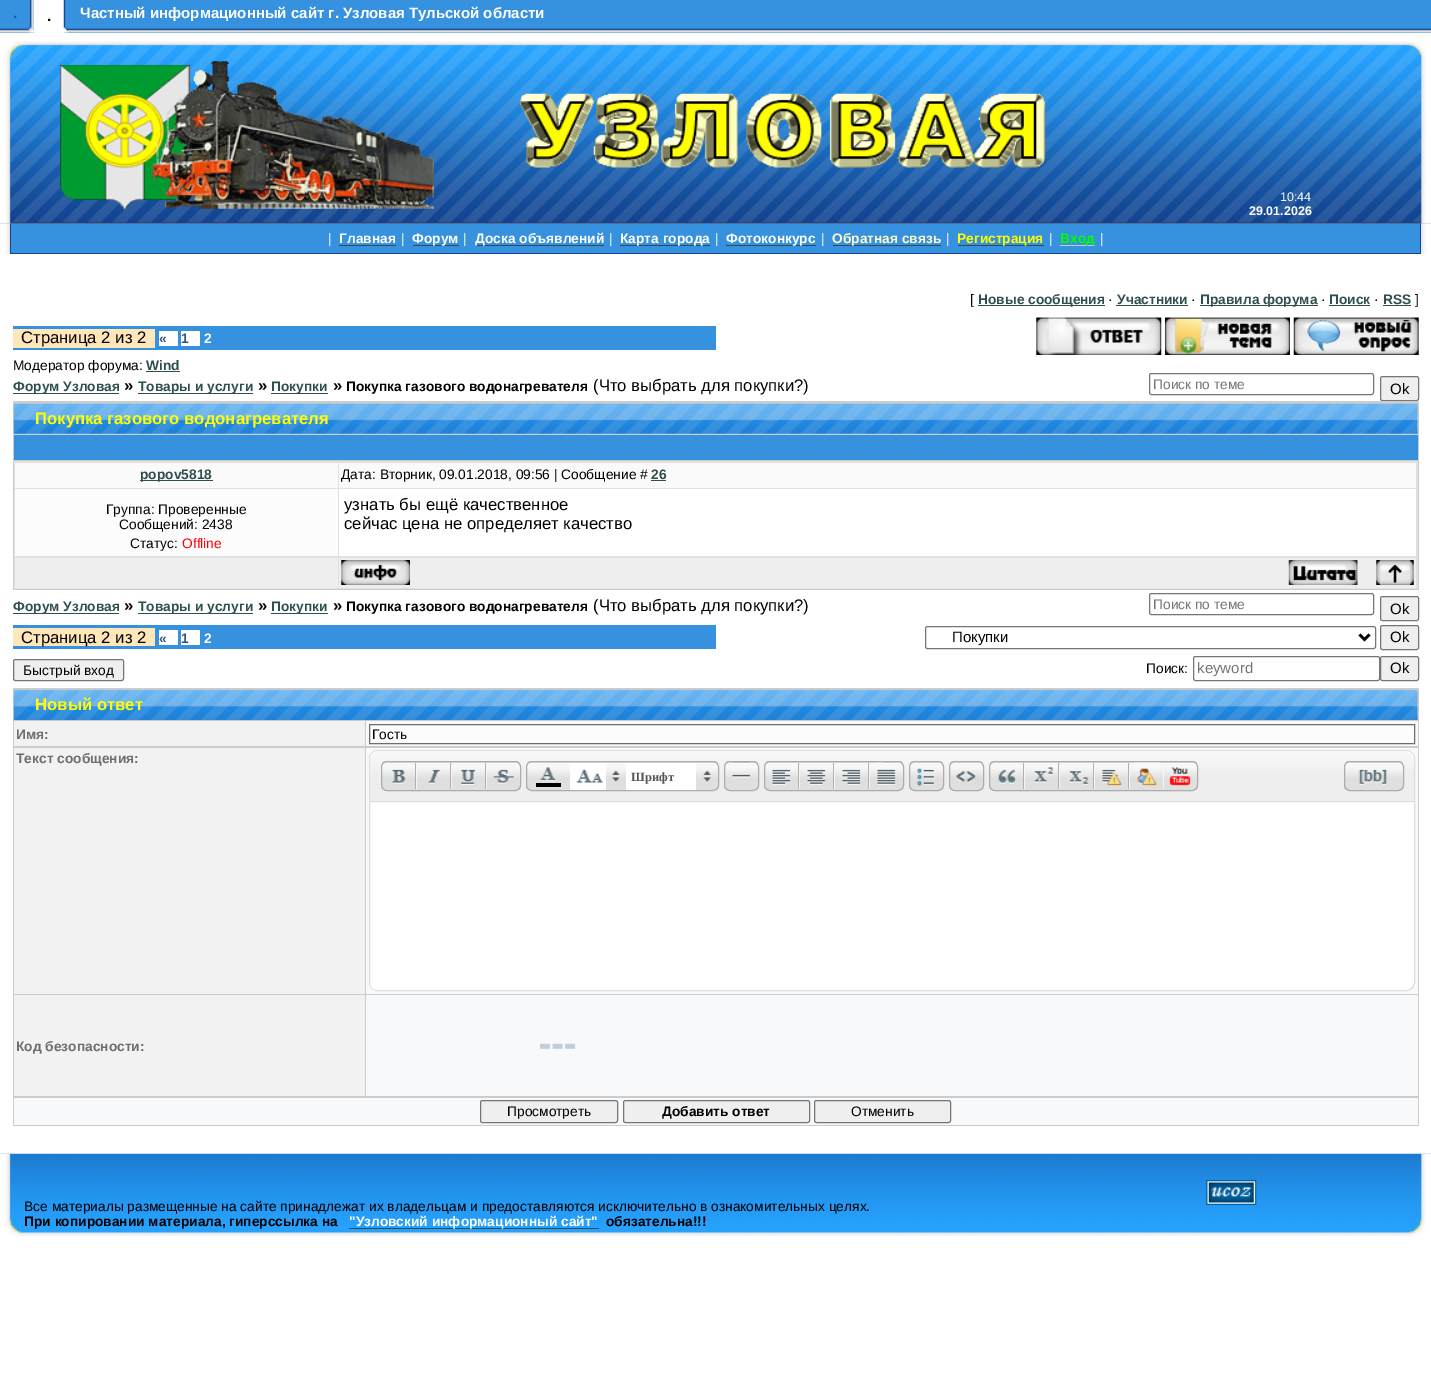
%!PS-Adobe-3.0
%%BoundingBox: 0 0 1431 1375
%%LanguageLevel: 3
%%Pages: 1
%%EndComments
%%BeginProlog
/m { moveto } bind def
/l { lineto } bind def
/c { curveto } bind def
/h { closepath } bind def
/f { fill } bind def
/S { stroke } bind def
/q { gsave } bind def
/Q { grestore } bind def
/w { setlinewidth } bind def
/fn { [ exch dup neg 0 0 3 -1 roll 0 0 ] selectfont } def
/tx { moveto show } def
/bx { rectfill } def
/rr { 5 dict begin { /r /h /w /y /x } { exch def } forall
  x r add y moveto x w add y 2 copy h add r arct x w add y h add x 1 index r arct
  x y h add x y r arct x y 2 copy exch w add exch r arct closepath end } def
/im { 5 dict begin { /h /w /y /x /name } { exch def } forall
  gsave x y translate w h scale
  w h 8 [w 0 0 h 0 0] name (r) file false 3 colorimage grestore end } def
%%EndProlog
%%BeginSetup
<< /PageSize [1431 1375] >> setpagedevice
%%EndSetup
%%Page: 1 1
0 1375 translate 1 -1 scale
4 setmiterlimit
1 setgray
0 0 1431 1375 bx
0.212 0.569 0.875 setrgbcolor
0 0 1431 33 bx
(image0.raw) 0 28 1431 5 im
/LiberationSans-Bold 15 fn
0.051 0.369 0.804 setrgbcolor
(.) 13 18 tx
(image1.raw) 28 0 6 33 im
1 setgray
34 0 30 33 bx
(image2.raw) 63 0 5 33 im
(Частный информационный сайт г. Узловая Тульской области) 80 18 tx
0 setgray
(.) 47 21 tx
(image3.raw) 0 41 1431 183 im
(image4.raw) 0 41 23 183 im
(image5.raw) 59 61 375 150 im
(image6.raw) 519 93 527 75 im
/LiberationSans-Regular 12.5 fn
1 setgray
(10:44) 1280 201 tx
/LiberationSans-Bold 12.5 fn
(29.01.2026) 1249 215 tx
(image7.raw) 1408 41 23 183 im
(image8.raw) 0 223 10 31 im
0.212 0.569 0.875 setrgbcolor
11 224 1409 29 bx
0.071 0.263 0.561 setrgbcolor
1420 224 1 30 bx
10 253 1411 1 bx
10 224 1 30 bx
/LiberationSans-Regular 13.75 fn
1 setgray
(|) 328 243 tx
/LiberationSans-Bold 13.75 fn
(Главная) 339 243 tx
0.184 0.31 0.31 setrgbcolor
339 245 57 1 bx
/LiberationSans-Regular 13.75 fn
1 setgray
(|) 401 243 tx
0.184 0.31 0.31 setrgbcolor
413 245 46 1 bx
/LiberationSans-Bold 13.75 fn
1 setgray
(Форум) 412 243 tx
/LiberationSans-Regular 13.75 fn
(|) 463 243 tx
0.184 0.31 0.31 setrgbcolor
475 245 129 1 bx
/LiberationSans-Bold 13.75 fn
1 setgray
(Доска объявлений) 475 243 tx
/LiberationSans-Regular 13.75 fn
(|) 609 243 tx
0.184 0.31 0.31 setrgbcolor
620 245 90 1 bx
/LiberationSans-Bold 13.75 fn
1 setgray
(Карта города) 620 243 tx
/LiberationSans-Regular 13.75 fn
(|) 715 243 tx
0.184 0.31 0.31 setrgbcolor
726 245 90 1 bx
/LiberationSans-Bold 13.75 fn
1 setgray
(Фотоконкурс) 726 243 tx
/LiberationSans-Regular 13.75 fn
(|) 821 243 tx
0.184 0.31 0.31 setrgbcolor
833 245 108 1 bx
/LiberationSans-Bold 13.75 fn
1 0.98 0.804 setrgbcolor
(Обратная связь) 832 243 tx
/LiberationSans-Regular 13.75 fn
1 setgray
(|) 946 243 tx
0.184 0.31 0.31 setrgbcolor
958 245 86 1 bx
/LiberationSans-Bold 13.75 fn
1 1 0 setrgbcolor
(Регистрация) 957 243 tx
/LiberationSans-Regular 13.75 fn
1 setgray
(|) 1049 243 tx
0.8 setgray
1060 245 35 1 bx
/LiberationSans-Bold 13.75 fn
0 1 0 setrgbcolor
(Вход) 1060 243 tx
/LiberationSans-Regular 13.75 fn
1 setgray
(|) 1100 243 tx
(image9.raw) 1421 223 10 31 im
0 setgray
([) 970 304 tx
0.184 0.31 0.31 setrgbcolor
978 305 127 1 bx
/LiberationSans-Bold 13.75 fn
(Новые сообщения) 978 304 tx
/LiberationSans-Regular 13.75 fn
0 setgray
(·) 1108 304 tx
/LiberationSans-Bold 13.75 fn
0.184 0.31 0.31 setrgbcolor
(Участники) 1117 304 tx
1116 305 72 1 bx
/LiberationSans-Regular 13.75 fn
0 setgray
(·) 1191 304 tx
0.184 0.31 0.31 setrgbcolor
1200 305 118 1 bx
/LiberationSans-Bold 13.75 fn
(Правила форума) 1200 304 tx
/LiberationSans-Regular 13.75 fn
0 setgray
(·) 1321 304 tx
/LiberationSans-Bold 13.75 fn
0.184 0.31 0.31 setrgbcolor
(Поиск) 1329 304 tx
1329 305 41 1 bx
/LiberationSans-Regular 13.75 fn
0 setgray
(·) 1374 304 tx
/LiberationSans-Bold 13.75 fn
0.184 0.31 0.31 setrgbcolor
(RSS) 1383 304 tx
1383 305 28 1 bx
/LiberationSans-Regular 13.75 fn
0 setgray
(]) 1415 304 tx
0.212 0.569 0.875 setrgbcolor
13 326 703 24 bx
1 0.906 0.729 setrgbcolor
13 329 142 19 bx
/LiberationSans-Regular 16.7 fn
0 setgray
(Страница 2 из 2) 21 343 tx
1 setgray
159 331 19 15 bx
/LiberationSans-Bold 13.75 fn
0.208 0.329 0.451 setrgbcolor
(«) 159 343 tx
1 setgray
181 331 19 15 bx
0.208 0.329 0.451 setrgbcolor
(1) 181 343 tx
1 setgray
(2) 204 343 tx
(image10.raw) 1036 317 126 38 im
(image11.raw) 1165 317 125 38 im
(image12.raw) 1293 317 126 38 im
/LiberationSans-Regular 13.75 fn
0 setgray
(Модератор форума:) 13 370 tx
/LiberationSans-Bold 13.75 fn
0.184 0.31 0.31 setrgbcolor
(Wind) 146 370 tx
146 371 34 1 bx
13 393 106 1 bx
(Форум Узловая) 13 391 tx
/LiberationSans-Bold 16.7 fn
0 setgray
(») 124 391 tx
0.184 0.31 0.31 setrgbcolor
138 393 115 1 bx
/LiberationSans-Bold 13.75 fn
(Товары и услуги) 138 391 tx
/LiberationSans-Bold 16.7 fn
0 setgray
(») 258 391 tx
0.184 0.31 0.31 setrgbcolor
271 393 57 1 bx
/LiberationSans-Bold 13.75 fn
(Покупки) 271 391 tx
/LiberationSans-Bold 16.7 fn
0 setgray
(») 333 391 tx
/LiberationSans-Bold 13.75 fn
(Покупка газового водонагревателя) 346 391 tx
/LiberationSans-Regular 16.7 fn
(\(Что выбрать для покупки?\)) 593 391 tx
0.463 setgray
1149.5 373.5 224 21 2 rr S
/LiberationSans-Regular 13.75 fn
0.459 setgray
(Поиск по теме) 1153 389 tx
0.937 setgray
1380.5 376.5 38 24 2 rr q f Q
0.463 setgray
S
/LiberationSans-Regular 15 fn
0 setgray
(Ok) 1390 394 tx
0.8 setgray
13 401 1406 189 bx
(image13.raw) 13 403 1405 31 im
/LiberationSans-Bold 16.7 fn
1 1 0 setrgbcolor
(Покупка газового водонагревателя) 35 424 tx
0.212 0.569 0.875 setrgbcolor
14 435 1404 25 bx
0.882 setgray
14 461 1404 128 bx
0.98 setgray
15 463 323 25 bx
0.184 0.31 0.31 setrgbcolor
140 480 73 1 bx
/LiberationSans-Bold 13.75 fn
(popov5818) 140 479 tx
0.98 setgray
339 463 1077 25 bx
/LiberationSans-Regular 13.75 fn
0 setgray
(Дата: Вторник, 09.01.2018, 09:56 | Сообщение #) 341 479 tx
/LiberationSans-Bold 13.75 fn
0.184 0.31 0.31 setrgbcolor
(26) 651 479 tx
651 480 15 1 bx
0.988 setgray
15 489 323 67 bx
/LiberationSans-Regular 13.75 fn
0 setgray
(Группа: Проверенные) 106 514 tx
(Сообщений: 2438) 119 529 tx
(Статус:) 130 548 tx
1 0 0 setrgbcolor
(Offline) 182 548 tx
1 setgray
339 489 1077 67 bx
/LiberationSans-Regular 16.7 fn
0 setgray
(узнать бы ещё качественное) 344 510 tx
(сейчас цена не определяет качество) 344 529 tx
0.933 setgray
15 558 323 30 bx
339 558 1077 30 bx
(image14.raw) 341 560 69 25 im
(image15.raw) 1288 560 70 25 im
(image16.raw) 1376 560 38 25 im
0.184 0.31 0.31 setrgbcolor
13 613 106 1 bx
/LiberationSans-Bold 13.75 fn
(Форум Узловая) 13 611 tx
/LiberationSans-Bold 16.7 fn
0 setgray
(») 124 611 tx
0.184 0.31 0.31 setrgbcolor
138 613 115 1 bx
/LiberationSans-Bold 13.75 fn
(Товары и услуги) 138 611 tx
/LiberationSans-Bold 16.7 fn
0 setgray
(») 258 611 tx
0.184 0.31 0.31 setrgbcolor
271 613 57 1 bx
/LiberationSans-Bold 13.75 fn
(Покупки) 271 611 tx
/LiberationSans-Bold 16.7 fn
0 setgray
(») 333 611 tx
/LiberationSans-Bold 13.75 fn
(Покупка газового водонагревателя) 346 611 tx
/LiberationSans-Regular 16.7 fn
(\(Что выбрать для покупки?\)) 593 611 tx
0.463 setgray
1149.5 593.5 224 21 2 rr S
/LiberationSans-Regular 13.75 fn
0.459 setgray
(Поиск по теме) 1153 609 tx
0.937 setgray
1380.5 596.5 38 24 2 rr q f Q
0.463 setgray
S
/LiberationSans-Regular 15 fn
0 setgray
(Ok) 1390 614 tx
0.212 0.569 0.875 setrgbcolor
13 625 703 24 bx
1 0.906 0.729 setrgbcolor
13 628 142 18 bx
/LiberationSans-Regular 16.7 fn
0 setgray
(Страница 2 из 2) 21 643 tx
1 setgray
159 630 19 15 bx
/LiberationSans-Bold 13.75 fn
0.208 0.329 0.451 setrgbcolor
(«) 159 643 tx
1 setgray
181 630 19 15 bx
0.208 0.329 0.451 setrgbcolor
(1) 181 643 tx
1 setgray
(2) 204 643 tx
0.463 setgray
925.5 626.5 450 22 2 rr S
0 setgray
2.5 w
1359.5 634.5 m 1364.5 639.5 l 1369.5 634.5 l S
/LiberationSans-Regular 15 fn
(Покупки) 952 642 tx
0.937 setgray
1380.5 625.5 38 24 2 rr q f Q
0.463 setgray
1 w
S
0 setgray
(Ok) 1390 642 tx
0.937 setgray
13.5 659.5 110 21 2 rr q f Q
0.463 setgray
S
/LiberationSans-Regular 13.75 fn
0 setgray
(Быстрый вход) 23 675 tx
(Поиск:) 1146 673 tx
0.463 setgray
1193.5 656.5 186 24 2 rr S
/LiberationSans-Regular 15 fn
0.459 setgray
(keyword) 1197 673 tx
0.937 setgray
1380.5 656.5 38 24 2 rr q f Q
0.463 setgray
S
0 setgray
(Ok) 1390 673 tx
0.8 setgray
13 688 1406 438 bx
(image17.raw) 13 689 1405 31 im
/LiberationSans-Bold 16.7 fn
1 1 0 setrgbcolor
(Новый ответ) 35 710 tx
0.949 setgray
14 721 351 25 bx
/LiberationSans-Bold 13.75 fn
0.431 setgray
(Имя:) 16 739 tx
0.973 0.976 0.98 setrgbcolor
366 721 1052 25 bx
0.988 setgray
369.5 724.5 m 1414.5 724.5 l 1414.5 743.5 l 369.5 743.5 l h q f Q
0.431 setgray
S
/LiberationSans-Regular 13.75 fn
0 setgray
(Гость) 372 739 tx
0.949 setgray
14 748 351 246 bx
/LiberationSans-Bold 13.75 fn
0.431 setgray
(Текст сообщения:) 16 763 tx
0.973 0.976 0.98 setrgbcolor
366 748 1052 246 bx
1 setgray
369.5 750.5 1045 240 8.5 rr q f Q
0.867 setgray
S
q 379 751 m 1405 751 l 1410 751 1414 755 1414 760 c 1414 801 l 370 801 l 370 760 l 370 755 374 751 379 751 c h clip newpath
<< /ShadingType 2 /ColorSpace /DeviceRGB /Coords [892 801 892 751] /Extend [true true] /Function << /FunctionType 3 /Domain [0 1] /Functions [<< /FunctionType 2 /Domain [0 1] /C0 [0.933 0.933 0.933] /C1 [0.933 0.933 0.933] /N 1 >> << /FunctionType 2 /Domain [0 1] /C0 [0.933 0.933 0.933] /C1 [0.98 0.98 0.98] /N 1 >>] /Bounds [0.5] /Encode [0 1 0 1] >> >> shfill Q
q 370 802 m 1414 802 l 1414 803 l 370 803 l h clip newpath
<< /ShadingType 2 /ColorSpace /DeviceRGB /Coords [892 851 892 801] /Extend [true true] /Function << /FunctionType 3 /Domain [0 1] /Functions [<< /FunctionType 2 /Domain [0 1] /C0 [0.933 0.933 0.933] /C1 [0.933 0.933 0.933] /N 1 >> << /FunctionType 2 /Domain [0 1] /C0 [0.933 0.933 0.933] /C1 [0.98 0.98 0.98] /N 1 >>] /Bounds [0.5] /Encode [0 1 0 1] >> >> shfill Q
370 801 1044 1 bx
q
381 761 140 30 6 rr clip newpath
q 381 761 m 521 761 l 521 763 l 381 763 l h clip newpath
<< /ShadingType 2 /ColorSpace /DeviceRGB /Coords [383 735 383 763] /Extend [true true] /Function << /FunctionType 3 /Domain [0 1] /Functions [<< /FunctionType 2 /Domain [0 1] /C0 [0.973 0.973 0.973] /C1 [0.973 0.973 0.973] /N 1 >> << /FunctionType 2 /Domain [0 1] /C0 [0.973 0.973 0.973] /C1 [0.875 0.875 0.875] /N 1 >> << /FunctionType 2 /Domain [0 1] /C0 [0.875 0.875 0.875] /C1 [0.875 0.875 0.875] /N 1 >>] /Bounds [0.17 0.59] /Encode [0 1 0 1 0 1] >> >> shfill Q
q 381 763 m 521 763 l 521 790 l 381 790 l h clip newpath
<< /ShadingType 2 /ColorSpace /DeviceRGB /Coords [383 763 383 790] /Extend [true true] /Function << /FunctionType 3 /Domain [0 1] /Functions [<< /FunctionType 2 /Domain [0 1] /C0 [0.973 0.973 0.973] /C1 [0.973 0.973 0.973] /N 1 >> << /FunctionType 2 /Domain [0 1] /C0 [0.973 0.973 0.973] /C1 [0.875 0.875 0.875] /N 1 >> << /FunctionType 2 /Domain [0 1] /C0 [0.875 0.875 0.875] /C1 [0.875 0.875 0.875] /N 1 >>] /Bounds [0.17 0.59] /Encode [0 1 0 1 0 1] >> >> shfill Q
Q
0.675 setgray
381.5 761.5 139 29 5.5 rr S
(image18.raw) 392 769 14 15 im
0.69 setgray
415 763 1 26 bx
(image19.raw) 427 769 14 15 im
450 763 1 26 bx
0.965 setgray
416 763 1 26 bx
(image20.raw) 461 769 15 16 im
0.69 setgray
485 763 1 26 bx
0.965 setgray
451 763 1 26 bx
(image21.raw) 493 769 21 15 im
486 763 1 26 bx
q
526 761 193 30 6 rr clip newpath
q 526 761 m 719 761 l 719 763 l 526 763 l h clip newpath
<< /ShadingType 2 /ColorSpace /DeviceRGB /Coords [528 735 528 763] /Extend [true true] /Function << /FunctionType 3 /Domain [0 1] /Functions [<< /FunctionType 2 /Domain [0 1] /C0 [0.973 0.973 0.973] /C1 [0.973 0.973 0.973] /N 1 >> << /FunctionType 2 /Domain [0 1] /C0 [0.973 0.973 0.973] /C1 [0.875 0.875 0.875] /N 1 >> << /FunctionType 2 /Domain [0 1] /C0 [0.875 0.875 0.875] /C1 [0.875 0.875 0.875] /N 1 >>] /Bounds [0.17 0.59] /Encode [0 1 0 1 0 1] >> >> shfill Q
q 526 763 m 719 763 l 719 790 l 526 790 l h clip newpath
<< /ShadingType 2 /ColorSpace /DeviceRGB /Coords [528 763 528 790] /Extend [true true] /Function << /FunctionType 3 /Domain [0 1] /Functions [<< /FunctionType 2 /Domain [0 1] /C0 [0.973 0.973 0.973] /C1 [0.973 0.973 0.973] /N 1 >> << /FunctionType 2 /Domain [0 1] /C0 [0.973 0.973 0.973] /C1 [0.875 0.875 0.875] /N 1 >> << /FunctionType 2 /Domain [0 1] /C0 [0.875 0.875 0.875] /C1 [0.875 0.875 0.875] /N 1 >>] /Bounds [0.17 0.59] /Encode [0 1 0 1 0 1] >> >> shfill Q
Q
0.675 setgray
526.5 761.5 192 29 5.5 rr S
(image22.raw) 539 767 17 15 im
0 setgray
536 783 25 4 bx
1 setgray
570 763 36 27 bx
(image23.raw) 576 769 27 14 im
(image24.raw) 612 770 8 13 im
626 763 70 27 bx
/LiberationSerif-Bold 12.5 fn
0.333 setgray
(Шрифт) 631 781 tx
(image25.raw) 703 770 9 13 im
q
724 761 35 30 6 rr clip newpath
q 724 761 m 759 761 l 759 763 l 724 763 l h clip newpath
<< /ShadingType 2 /ColorSpace /DeviceRGB /Coords [725 735 725 763] /Extend [true true] /Function << /FunctionType 3 /Domain [0 1] /Functions [<< /FunctionType 2 /Domain [0 1] /C0 [0.973 0.973 0.973] /C1 [0.973 0.973 0.973] /N 1 >> << /FunctionType 2 /Domain [0 1] /C0 [0.973 0.973 0.973] /C1 [0.875 0.875 0.875] /N 1 >> << /FunctionType 2 /Domain [0 1] /C0 [0.875 0.875 0.875] /C1 [0.875 0.875 0.875] /N 1 >>] /Bounds [0.17 0.59] /Encode [0 1 0 1 0 1] >> >> shfill Q
q 724 763 m 759 763 l 759 790 l 724 790 l h clip newpath
<< /ShadingType 2 /ColorSpace /DeviceRGB /Coords [725 763 725 790] /Extend [true true] /Function << /FunctionType 3 /Domain [0 1] /Functions [<< /FunctionType 2 /Domain [0 1] /C0 [0.973 0.973 0.973] /C1 [0.973 0.973 0.973] /N 1 >> << /FunctionType 2 /Domain [0 1] /C0 [0.973 0.973 0.973] /C1 [0.875 0.875 0.875] /N 1 >> << /FunctionType 2 /Domain [0 1] /C0 [0.875 0.875 0.875] /C1 [0.875 0.875 0.875] /N 1 >>] /Bounds [0.17 0.59] /Encode [0 1 0 1 0 1] >> >> shfill Q
Q
0.675 setgray
724.5 761.5 34 29 5.5 rr S
(image26.raw) 732 762 19 16 im
q
764 761 140 30 6 rr clip newpath
q 764 761 m 904 761 l 904 763 l 764 763 l h clip newpath
<< /ShadingType 2 /ColorSpace /DeviceRGB /Coords [765 735 765 763] /Extend [true true] /Function << /FunctionType 3 /Domain [0 1] /Functions [<< /FunctionType 2 /Domain [0 1] /C0 [0.973 0.973 0.973] /C1 [0.973 0.973 0.973] /N 1 >> << /FunctionType 2 /Domain [0 1] /C0 [0.973 0.973 0.973] /C1 [0.875 0.875 0.875] /N 1 >> << /FunctionType 2 /Domain [0 1] /C0 [0.875 0.875 0.875] /C1 [0.875 0.875 0.875] /N 1 >>] /Bounds [0.17 0.59] /Encode [0 1 0 1 0 1] >> >> shfill Q
q 764 763 m 904 763 l 904 790 l 764 790 l h clip newpath
<< /ShadingType 2 /ColorSpace /DeviceRGB /Coords [765 763 765 790] /Extend [true true] /Function << /FunctionType 3 /Domain [0 1] /Functions [<< /FunctionType 2 /Domain [0 1] /C0 [0.973 0.973 0.973] /C1 [0.973 0.973 0.973] /N 1 >> << /FunctionType 2 /Domain [0 1] /C0 [0.973 0.973 0.973] /C1 [0.875 0.875 0.875] /N 1 >> << /FunctionType 2 /Domain [0 1] /C0 [0.875 0.875 0.875] /C1 [0.875 0.875 0.875] /N 1 >>] /Bounds [0.17 0.59] /Encode [0 1 0 1 0 1] >> >> shfill Q
Q
764.5 761.5 139 29 5.5 rr S
(image27.raw) 772 769 19 16 im
0.69 setgray
798 763 1 26 bx
(image28.raw) 807 769 19 16 im
833 763 1 26 bx
0.965 setgray
799 763 1 26 bx
(image29.raw) 842 769 19 16 im
0.69 setgray
868 763 1 26 bx
0.965 setgray
834 763 1 26 bx
(image30.raw) 877 762 20 23 im
869 763 1 26 bx
q
909 761 35 30 6 rr clip newpath
q 909 761 m 944 761 l 944 763 l 909 763 l h clip newpath
<< /ShadingType 2 /ColorSpace /DeviceRGB /Coords [910 735 910 763] /Extend [true true] /Function << /FunctionType 3 /Domain [0 1] /Functions [<< /FunctionType 2 /Domain [0 1] /C0 [0.973 0.973 0.973] /C1 [0.973 0.973 0.973] /N 1 >> << /FunctionType 2 /Domain [0 1] /C0 [0.973 0.973 0.973] /C1 [0.875 0.875 0.875] /N 1 >> << /FunctionType 2 /Domain [0 1] /C0 [0.875 0.875 0.875] /C1 [0.875 0.875 0.875] /N 1 >>] /Bounds [0.17 0.59] /Encode [0 1 0 1 0 1] >> >> shfill Q
q 909 763 m 944 763 l 944 790 l 909 790 l h clip newpath
<< /ShadingType 2 /ColorSpace /DeviceRGB /Coords [910 763 910 790] /Extend [true true] /Function << /FunctionType 3 /Domain [0 1] /Functions [<< /FunctionType 2 /Domain [0 1] /C0 [0.973 0.973 0.973] /C1 [0.973 0.973 0.973] /N 1 >> << /FunctionType 2 /Domain [0 1] /C0 [0.973 0.973 0.973] /C1 [0.875 0.875 0.875] /N 1 >> << /FunctionType 2 /Domain [0 1] /C0 [0.875 0.875 0.875] /C1 [0.875 0.875 0.875] /N 1 >>] /Bounds [0.17 0.59] /Encode [0 1 0 1 0 1] >> >> shfill Q
Q
0.675 setgray
909.5 761.5 34 29 5.5 rr S
(image31.raw) 917 768 17 19 im
q
949 761 35 30 6 rr clip newpath
q 949 761 m 984 761 l 984 763 l 949 763 l h clip newpath
<< /ShadingType 2 /ColorSpace /DeviceRGB /Coords [950 735 950 763] /Extend [true true] /Function << /FunctionType 3 /Domain [0 1] /Functions [<< /FunctionType 2 /Domain [0 1] /C0 [0.973 0.973 0.973] /C1 [0.973 0.973 0.973] /N 1 >> << /FunctionType 2 /Domain [0 1] /C0 [0.973 0.973 0.973] /C1 [0.875 0.875 0.875] /N 1 >> << /FunctionType 2 /Domain [0 1] /C0 [0.875 0.875 0.875] /C1 [0.875 0.875 0.875] /N 1 >>] /Bounds [0.17 0.59] /Encode [0 1 0 1 0 1] >> >> shfill Q
q 949 763 m 984 763 l 984 790 l 949 790 l h clip newpath
<< /ShadingType 2 /ColorSpace /DeviceRGB /Coords [950 763 950 790] /Extend [true true] /Function << /FunctionType 3 /Domain [0 1] /Functions [<< /FunctionType 2 /Domain [0 1] /C0 [0.973 0.973 0.973] /C1 [0.973 0.973 0.973] /N 1 >> << /FunctionType 2 /Domain [0 1] /C0 [0.973 0.973 0.973] /C1 [0.875 0.875 0.875] /N 1 >> << /FunctionType 2 /Domain [0 1] /C0 [0.875 0.875 0.875] /C1 [0.875 0.875 0.875] /N 1 >>] /Bounds [0.17 0.59] /Encode [0 1 0 1 0 1] >> >> shfill Q
Q
949.5 761.5 34 29 5.5 rr S
(image32.raw) 956 770 26 14 im
q
989 761 209 30 6 rr clip newpath
q 989 761 m 1198 761 l 1198 763 l 989 763 l h clip newpath
<< /ShadingType 2 /ColorSpace /DeviceRGB /Coords [990 735 990 763] /Extend [true true] /Function << /FunctionType 3 /Domain [0 1] /Functions [<< /FunctionType 2 /Domain [0 1] /C0 [0.973 0.973 0.973] /C1 [0.973 0.973 0.973] /N 1 >> << /FunctionType 2 /Domain [0 1] /C0 [0.973 0.973 0.973] /C1 [0.875 0.875 0.875] /N 1 >> << /FunctionType 2 /Domain [0 1] /C0 [0.875 0.875 0.875] /C1 [0.875 0.875 0.875] /N 1 >>] /Bounds [0.17 0.59] /Encode [0 1 0 1 0 1] >> >> shfill Q
q 989 763 m 1198 763 l 1198 790 l 989 790 l h clip newpath
<< /ShadingType 2 /ColorSpace /DeviceRGB /Coords [990 763 990 790] /Extend [true true] /Function << /FunctionType 3 /Domain [0 1] /Functions [<< /FunctionType 2 /Domain [0 1] /C0 [0.973 0.973 0.973] /C1 [0.973 0.973 0.973] /N 1 >> << /FunctionType 2 /Domain [0 1] /C0 [0.973 0.973 0.973] /C1 [0.875 0.875 0.875] /N 1 >> << /FunctionType 2 /Domain [0 1] /C0 [0.875 0.875 0.875] /C1 [0.875 0.875 0.875] /N 1 >>] /Bounds [0.17 0.59] /Encode [0 1 0 1 0 1] >> >> shfill Q
Q
989.5 761.5 208 29 5.5 rr S
(image33.raw) 998 769 18 15 im
0.69 setgray
1023 763 1 26 bx
(image34.raw) 1034 767 20 16 im
1058 763 1 26 bx
0.965 setgray
1024 763 1 26 bx
(image35.raw) 1069 771 20 14 im
0.69 setgray
1093 763 1 26 bx
0.965 setgray
1059 763 1 26 bx
(image36.raw) 1102 769 20 17 im
0.69 setgray
1128 763 1 26 bx
0.965 setgray
1094 763 1 26 bx
(image37.raw) 1135 762 25 24 im
1129 763 1 26 bx
(image38.raw) 1169 767 22 19 im
1163 763 1 26 bx
q
1344 761 60 30 6 rr clip newpath
q 1344 761 m 1404 761 l 1404 763 l 1344 763 l h clip newpath
<< /ShadingType 2 /ColorSpace /DeviceRGB /Coords [1345 735 1345 763] /Extend [true true] /Function << /FunctionType 3 /Domain [0 1] /Functions [<< /FunctionType 2 /Domain [0 1] /C0 [0.973 0.973 0.973] /C1 [0.973 0.973 0.973] /N 1 >> << /FunctionType 2 /Domain [0 1] /C0 [0.973 0.973 0.973] /C1 [0.875 0.875 0.875] /N 1 >> << /FunctionType 2 /Domain [0 1] /C0 [0.875 0.875 0.875] /C1 [0.875 0.875 0.875] /N 1 >>] /Bounds [0.17 0.59] /Encode [0 1 0 1 0 1] >> >> shfill Q
q 1344 763 m 1404 763 l 1404 790 l 1344 790 l h clip newpath
<< /ShadingType 2 /ColorSpace /DeviceRGB /Coords [1345 763 1345 790] /Extend [true true] /Function << /FunctionType 3 /Domain [0 1] /Functions [<< /FunctionType 2 /Domain [0 1] /C0 [0.973 0.973 0.973] /C1 [0.973 0.973 0.973] /N 1 >> << /FunctionType 2 /Domain [0 1] /C0 [0.973 0.973 0.973] /C1 [0.875 0.875 0.875] /N 1 >> << /FunctionType 2 /Domain [0 1] /C0 [0.875 0.875 0.875] /C1 [0.875 0.875 0.875] /N 1 >>] /Bounds [0.17 0.59] /Encode [0 1 0 1 0 1] >> >> shfill Q
Q
0.675 setgray
1344.5 761.5 59 29 5.5 rr S
(image39.raw) 1358 769 29 16 im
(image40.raw) 370 983 1039 7 im
0.949 setgray
14 995 351 101 bx
/LiberationSans-Bold 13.75 fn
0.431 setgray
(Код безопасности:) 16 1051 tx
0.973 0.976 0.98 setrgbcolor
366 995 1052 101 bx
(image41.raw) 540 1043 36 6 im
14 1098 1404 27 bx
0.937 setgray
480.5 1100.5 137 22 2 rr q f Q
0.463 setgray
S
/LiberationSans-Regular 13.75 fn
0 setgray
(Просмотреть) 507 1116 tx
0.937 setgray
623.5 1100.5 186 22 2 rr q f Q
0.463 setgray
S
/LiberationSans-Bold 13.75 fn
0 setgray
(Добавить ответ) 662 1116 tx
0.937 setgray
814.5 1100.5 136 22 2 rr q f Q
0.463 setgray
S
/LiberationSans-Regular 13.75 fn
0 setgray
(Отменить) 851 1116 tx
(image42.raw) 0 1153 1431 84 im
(image43.raw) 0 1153 20 84 im
(Все материалы размещенные на сайте принадлежат их владельцам и предоставляются исключительно в ознакомительных целях.) 24 1211 tx
/LiberationSans-Bold 13.75 fn
(При копировании материала, гиперссылка на) 24 1226 tx
0.184 0.31 0.31 setrgbcolor
349 1228 250 1 bx
1 setgray
("Узловский информационный сайт") 349 1226 tx
0 setgray
(обязательна!!!) 606 1226 tx
(image44.raw) 1408 1153 23 84 im
(image45.raw) 1206 1180 51 25 im
showpage
%%EOF
